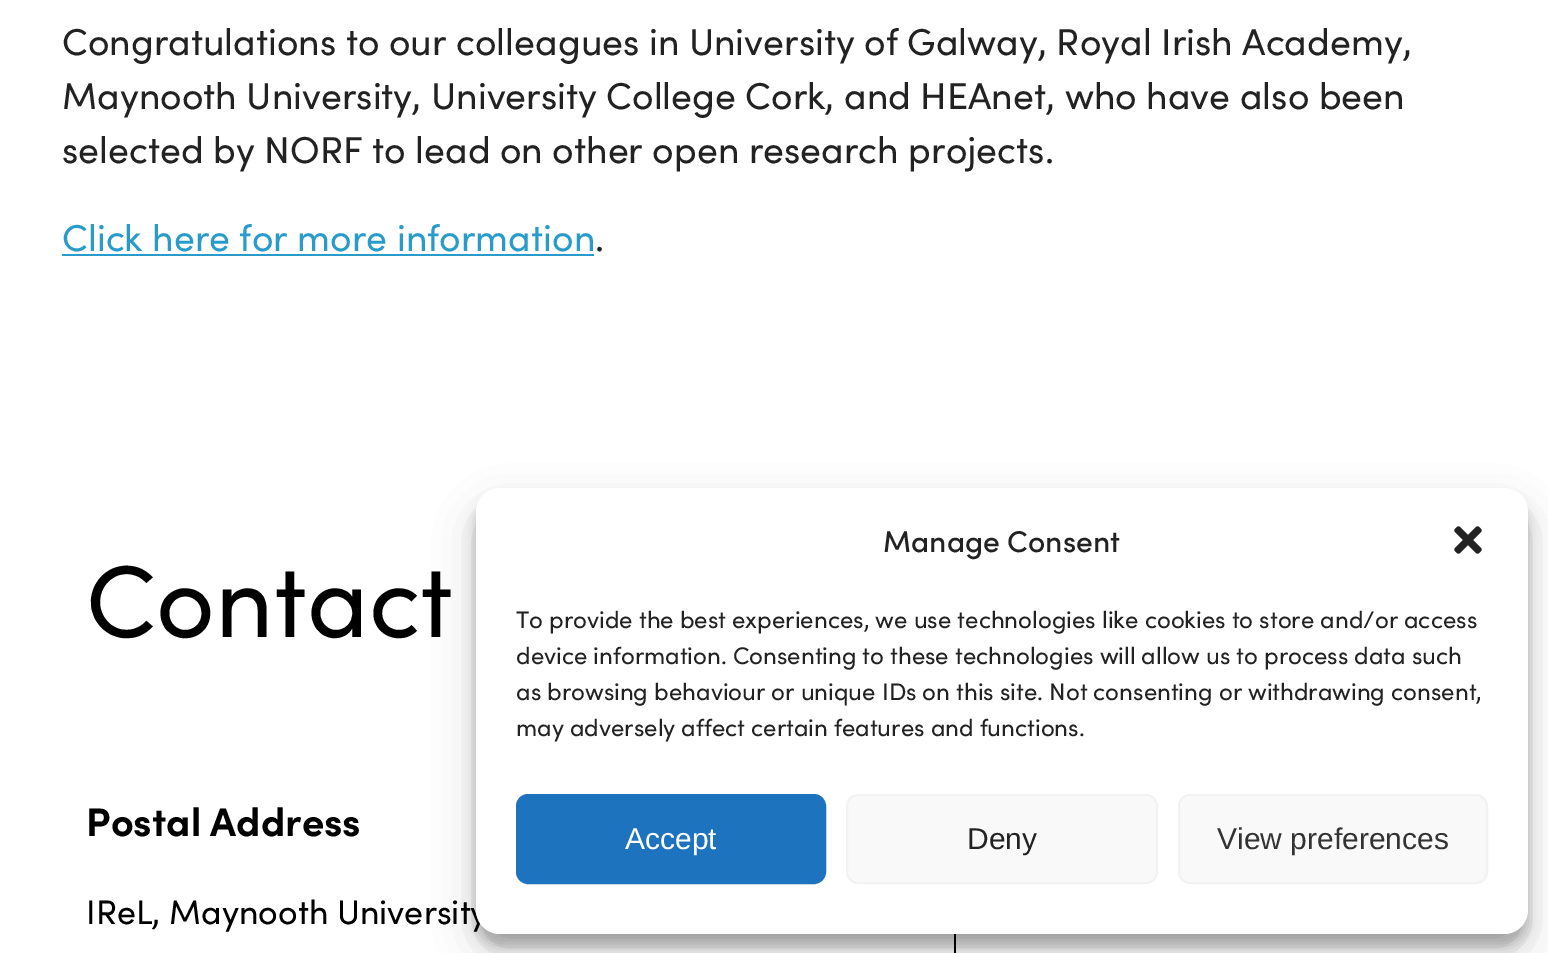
%!PS-Adobe-3.0
%%BoundingBox: 0 0 1548 953
%%LanguageLevel: 3
%%Pages: 1
%%EndComments
%%BeginProlog
/f { fill } bind def
/S { stroke } bind def
/q { gsave } bind def
/Q { grestore } bind def
/w { setlinewidth } bind def
/fn { [ exch dup neg 0 0 3 -1 roll 0 0 ] selectfont } def
/tx { moveto show } def
/bx { rectfill } def
/al { dup .setfillconstantalpha .setstrokeconstantalpha } def
/rr { 5 dict begin { /r /h /w /y /x } { exch def } forall
  x r add y moveto x w add y 2 copy h add r arct x w add y h add x 1 index r arct
  x y h add x y r arct x y 2 copy exch w add exch r arct closepath end } def
/sh { 12 dict begin { /a /b /q /h /w /y /x } { exch def } forall gsave /was 0 def
  9 -2 -9 { dup b mul 4 div /e exch def 1 sub .425 mul 2.718 exch exp 1 add a .99 .min exch div /now exch def
    1 1 now sub 1 was sub div sub al /was now def
    w h .min e 2 mul add 0 gt { x e sub y e sub w e 2 mul add h e 2 mul add
      q e add b .6 mul add w h .min 2 div e add .min 0 .max rr fill } if } for grestore end } def
/im { 5 dict begin { /h /w /y /x /name } { exch def } forall
  gsave x y translate w h scale
  w h 8 [w 0 0 h 0 0] name (r) file false 3 colorimage grestore end } def
%%EndProlog
%%BeginSetup
<< /PageSize [1548 953] /PageUsesTransparency true >> setpagedevice
%%EndSetup
%%Page: 1 1
0 .pushpdf14devicefilter
0 953 translate 1 -1 scale
4 setmiterlimit
1 setgray
0 0 1548 953 bx
/Sofia-Regular 37.4 fn
0.133 setgray
(Congratulations to our colleagues in University of Galway, Royal Irish Academy,) 62 55 tx
(Maynooth University, University College Cork, and HEAnet, who have also been) 62 109 tx
(selected by NORF to lead on other open research projects.) 62 163 tx
0.161 0.608 0.792 setrgbcolor
(Click here for more information) 62 251 tx
62 254 532 2 bx
0.133 setgray
(.) 595 251 tx
/Sofia-Regular 102 fn
0 setgray
(Contact) 86 637 tx
954 934 2 19 bx
/Sofia-Bold 39.75 fn
(Postal Address) 86 836 tx
/Sofia-Regular 34 fn
(IReL, Maynooth University) 86 924 tx
476 500 1052 446 24 6 0.23 sh
476 508 1052 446 24 20 0.19 sh
1 setgray
476 488 1052 446 24 rr f
/Sofia-Medium 30 fn
0.133 setgray
(Manage Consent) 883 552 tx
(image0.raw) 1454 526 28 28 im
/Sofia-Regular 24 fn
(To provide the best experiences, we use technologies like cookies to store and/or access) 516 628 tx
(device information. Consenting to these technologies will allow us to process data such) 516 664 tx
(as browsing behaviour or unique IDs on this site. Not consenting or withdrawing consent,) 516 700 tx
(may adversely affect certain features and functions.) 516 736 tx
0.118 0.451 0.745 setrgbcolor
517 795 308 88 11 rr q f Q
2 w
S
/LiberationSans-Regular 30 fn
1 setgray
(Accept) 625 849 tx
0.976 setgray
847 795 310 88 11 rr q f Q
0.949 setgray
S
0.133 setgray
(Deny) 967 849 tx
0.976 setgray
1179 795 308 88 11 rr q f Q
0.949 setgray
S
0.2 setgray
(View preferences) 1217 849 tx
.poppdf14devicefilter showpage
%%EOF
